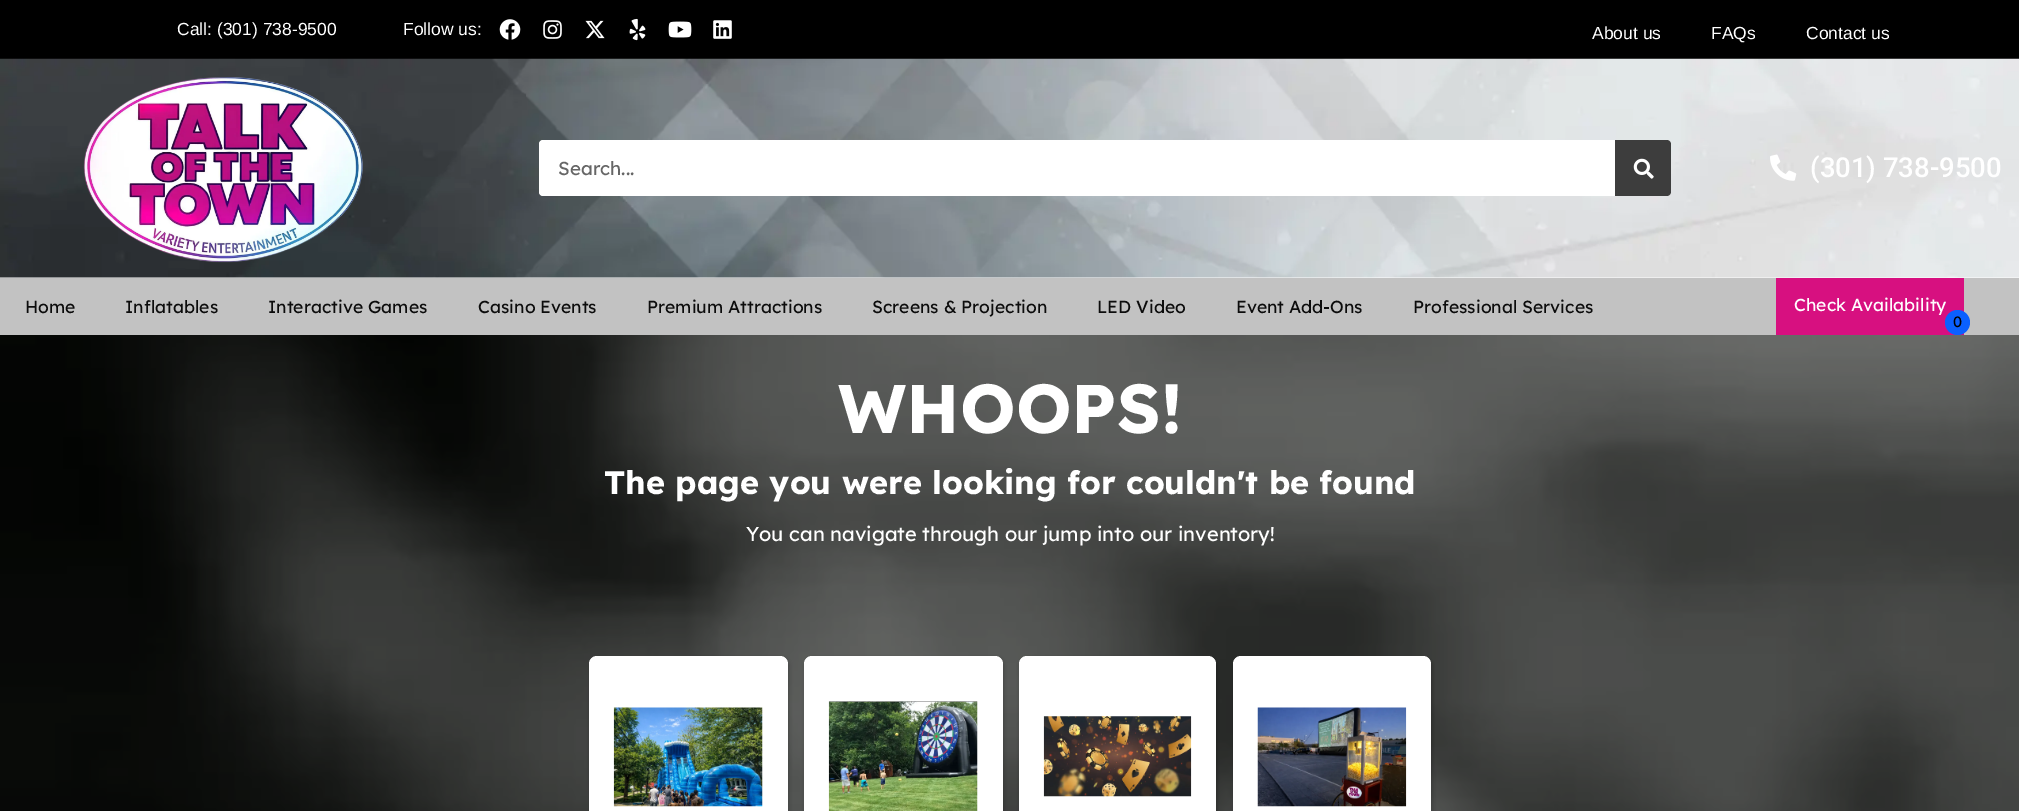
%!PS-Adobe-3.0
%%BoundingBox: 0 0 2019 811
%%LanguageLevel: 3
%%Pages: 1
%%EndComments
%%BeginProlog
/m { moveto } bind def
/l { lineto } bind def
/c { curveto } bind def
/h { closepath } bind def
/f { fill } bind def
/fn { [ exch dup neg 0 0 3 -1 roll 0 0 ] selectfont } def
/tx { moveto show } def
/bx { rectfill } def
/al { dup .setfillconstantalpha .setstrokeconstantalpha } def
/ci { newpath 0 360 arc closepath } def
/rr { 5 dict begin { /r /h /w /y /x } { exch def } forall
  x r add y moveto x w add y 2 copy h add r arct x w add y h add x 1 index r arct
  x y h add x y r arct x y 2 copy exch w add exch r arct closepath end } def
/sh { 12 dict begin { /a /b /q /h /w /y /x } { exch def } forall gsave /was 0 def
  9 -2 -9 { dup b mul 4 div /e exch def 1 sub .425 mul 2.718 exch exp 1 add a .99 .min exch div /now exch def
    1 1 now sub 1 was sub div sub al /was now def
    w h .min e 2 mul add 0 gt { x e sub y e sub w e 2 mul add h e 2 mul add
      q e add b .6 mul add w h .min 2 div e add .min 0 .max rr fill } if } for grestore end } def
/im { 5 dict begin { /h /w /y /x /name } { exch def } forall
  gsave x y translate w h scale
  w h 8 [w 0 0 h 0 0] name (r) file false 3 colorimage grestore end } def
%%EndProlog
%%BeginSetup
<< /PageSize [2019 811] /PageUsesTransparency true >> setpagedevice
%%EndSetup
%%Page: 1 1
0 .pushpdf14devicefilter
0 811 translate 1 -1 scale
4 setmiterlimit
1 setgray
0 0 2019 811 bx
0 setgray
0 0 2019 59 bx
/LiberationSans-Regular 17.5 fn
1 setgray
(Call: \(301\) 738-9500) 177 35 tx
(Follow us:) 403 35 tx
(image0.raw) 499 19 22 21 im
(image1.raw) 543 20 19 19 im
(image2.raw) 585 20 20 19 im
(image3.raw) 629 18 17 23 im
(image4.raw) 668 21 24 17 im
(image5.raw) 713 20 19 19 im
(About us) 1592 39 tx
(FAQs) 1711 39 tx
(Contact us) 1806 39 tx
(image6.raw) 0 58 2019 220 im
(image7.raw) 83 77 280 186 im
539 140 1132 56 4 rr f
/LexendDeca-Regular 18.75 fn
0.4 setgray
(Search...) 558 175 tx
0.239 setgray
1615 140 m 1667 140 l 1669 140 1671 142 1671 144 c 1671 192 l 1671 194 1669 196 1667 196 c 1615 196 l h f
(image8.raw) 1633 158 21 21 im
(image9.raw) 1770 154 27 27 im
/Roboto-Medium 27.5 fn
1 setgray
(\(301\) 738-9500) 1810 177 tx
0.761 setgray
0 278 2019 57 bx
/LexendDeca-Regular 17.5 fn
0.047 setgray
(Home) 25 313 tx
(Inflatables) 125 313 tx
(Interactive Games) 268 313 tx
(Casino Events) 478 313 tx
(Premium Attractions) 647 313 tx
(Screens & Projection) 872 313 tx
(LED Video) 1097 313 tx
(Event Add-Ons) 1236 313 tx
(Professional Services) 1413 313 tx
0.843 0.063 0.502 setrgbcolor
1776 278 188 57 bx
1 setgray
(Check Availability) 1794 311 tx
0.043 0.376 1 setrgbcolor
1957.5 322.5 12.5 ci f
/LexendDeca-Regular 15 fn
0 setgray
(0) 1953 327 tx
(image10.raw) 0 335 2019 476 im
/LexendDeca-Bold 68.75 fn
1 setgray
(WHOOPS!) 838 433 tx
/LexendDeca-Bold 32.5 fn
(The page you were looking for couldn't be found) 604 494 tx
/LexendDeca-Regular 20 fn
(You can navigate through our jump into our inventory!) 746 541 tx
0 setgray
590 658 199 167 8 2 0.2 sh
1 setgray
589 656 199 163 8 rr f
(image11.raw) 613 707 150 100 im
0 setgray
805 658 199 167 8 2 0.2 sh
1 setgray
804 656 199 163 8 rr f
(image12.raw) 828 701 150 110 im
0 setgray
1020 658 198 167 8 2 0.2 sh
1 setgray
1019 656 197 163 8 rr f
(image13.raw) 1043 716 149 81 im
0 setgray
1234 658 199 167 8 2 0.2 sh
1 setgray
1233 656 198 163 8 rr f
(image14.raw) 1257 707 150 100 im
.poppdf14devicefilter showpage
%%EOF
